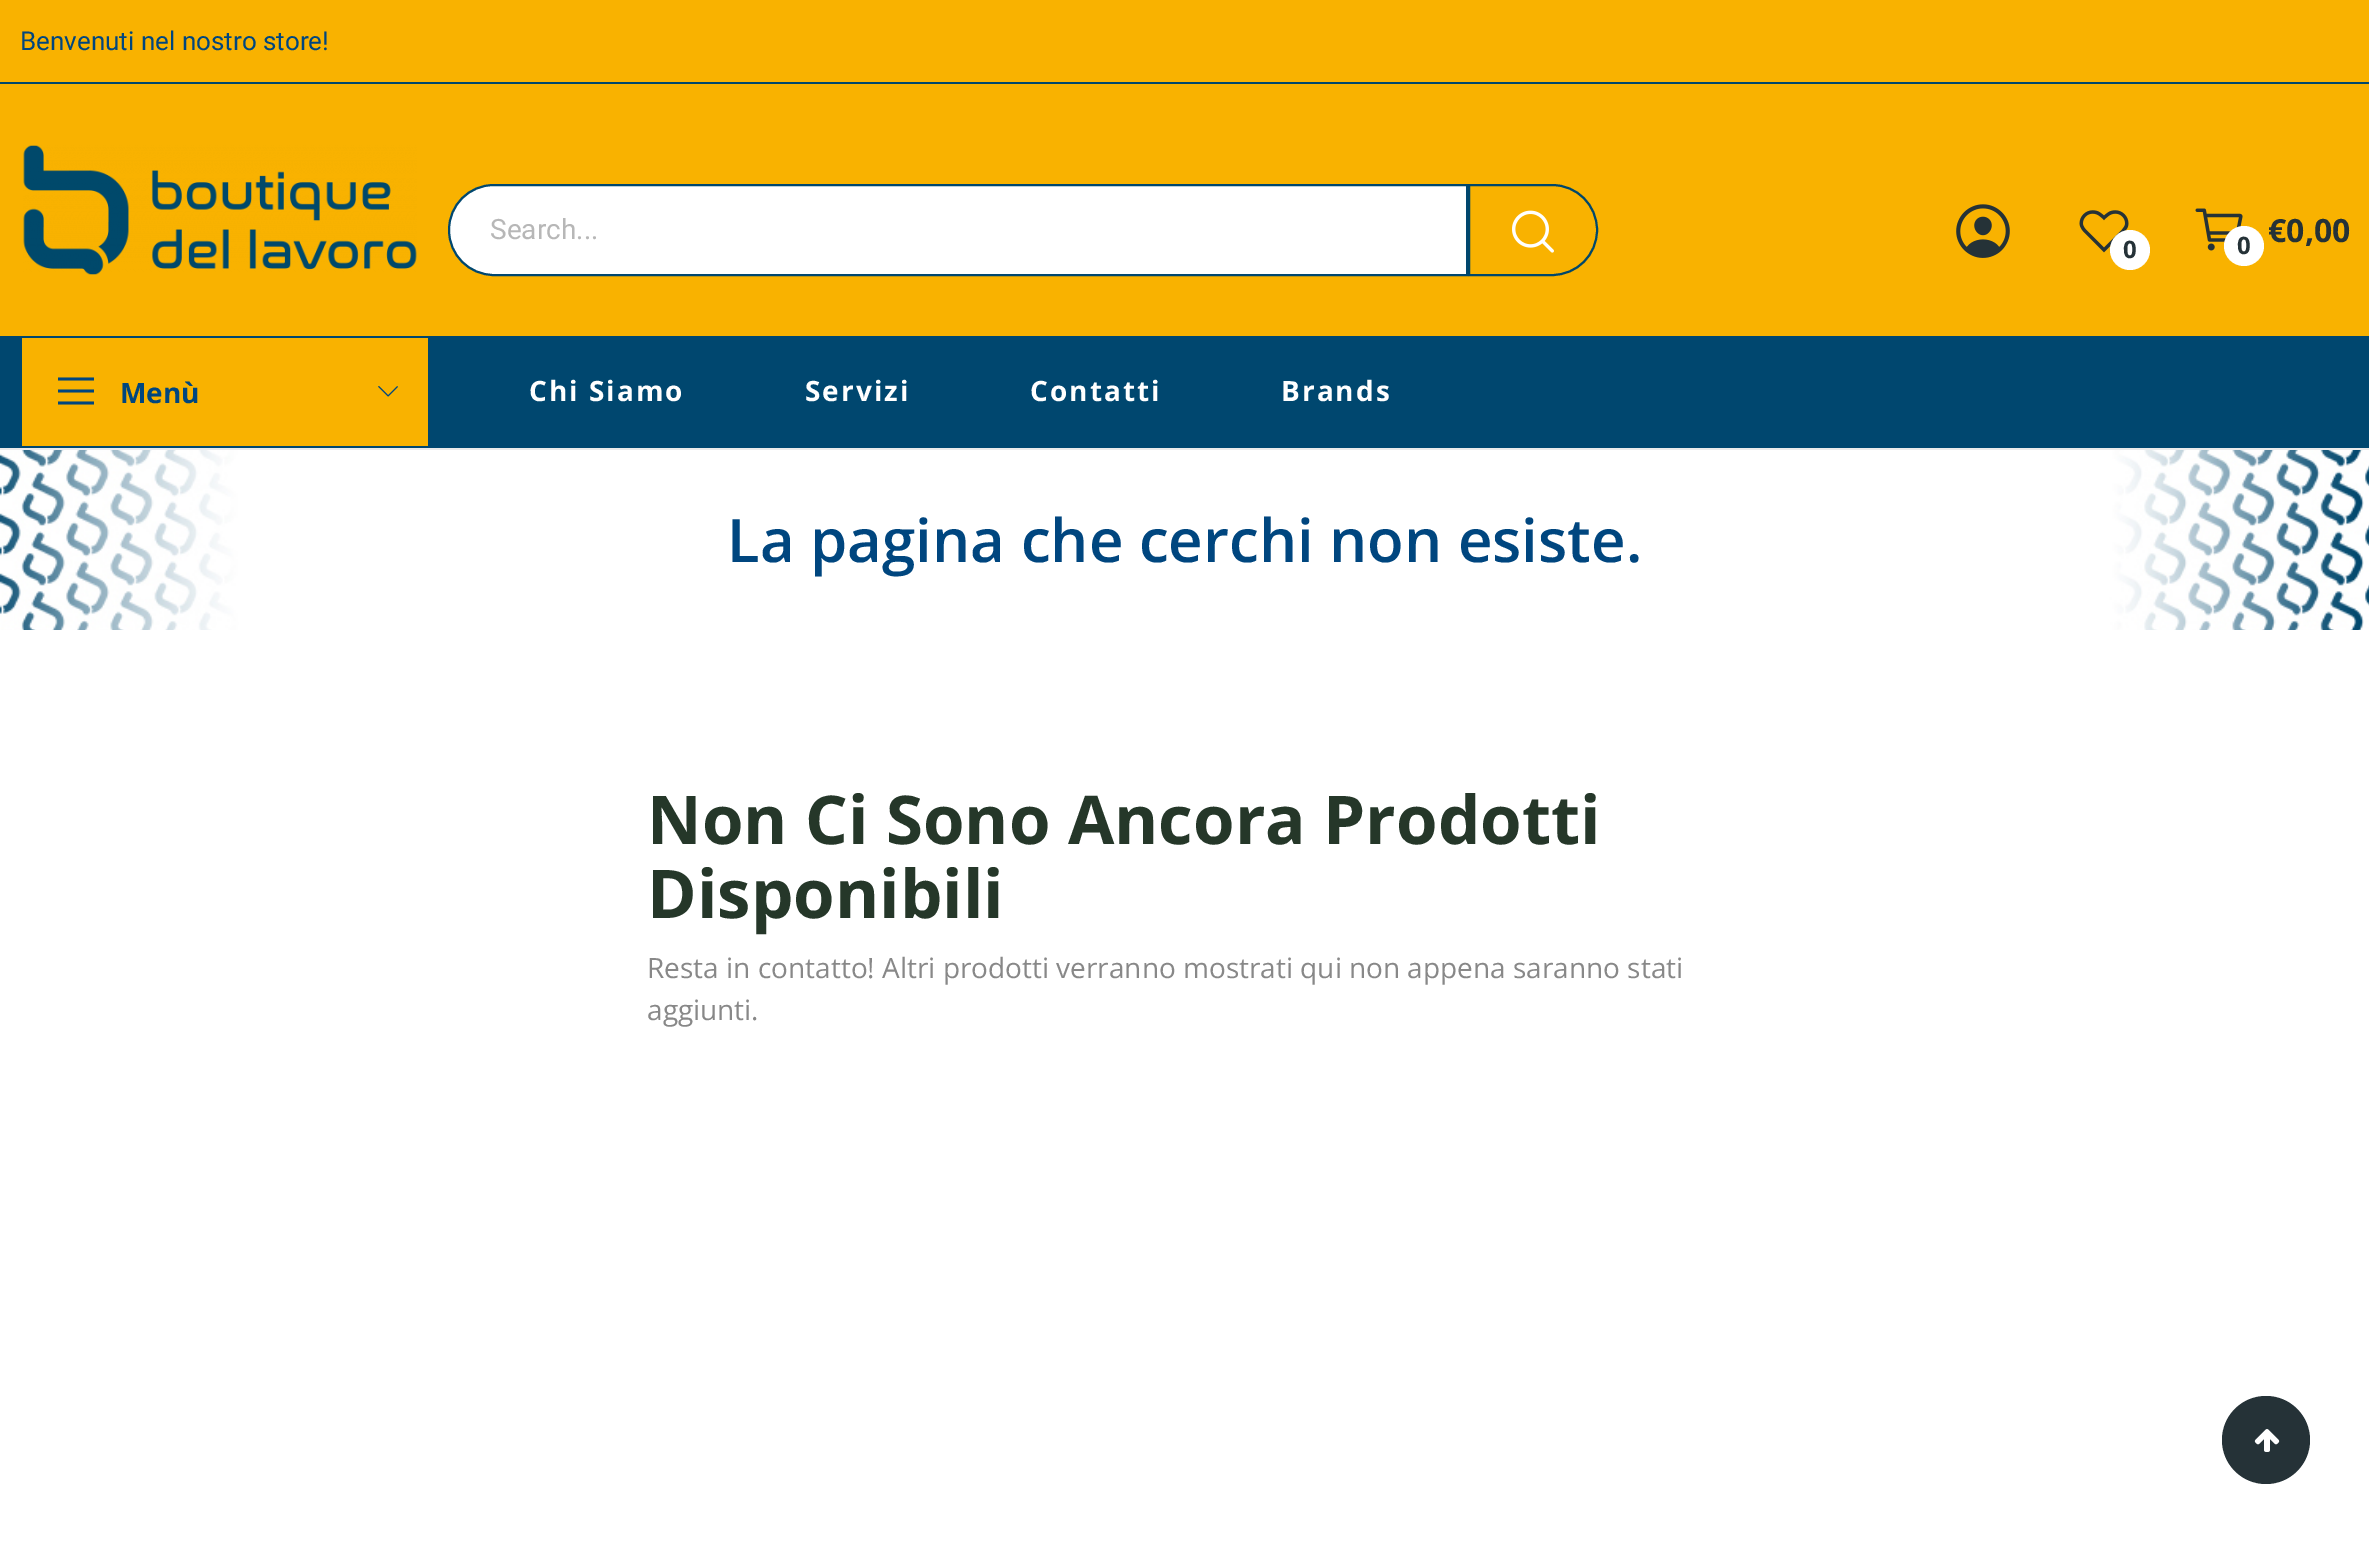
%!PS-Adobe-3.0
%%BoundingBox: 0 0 2369 1544
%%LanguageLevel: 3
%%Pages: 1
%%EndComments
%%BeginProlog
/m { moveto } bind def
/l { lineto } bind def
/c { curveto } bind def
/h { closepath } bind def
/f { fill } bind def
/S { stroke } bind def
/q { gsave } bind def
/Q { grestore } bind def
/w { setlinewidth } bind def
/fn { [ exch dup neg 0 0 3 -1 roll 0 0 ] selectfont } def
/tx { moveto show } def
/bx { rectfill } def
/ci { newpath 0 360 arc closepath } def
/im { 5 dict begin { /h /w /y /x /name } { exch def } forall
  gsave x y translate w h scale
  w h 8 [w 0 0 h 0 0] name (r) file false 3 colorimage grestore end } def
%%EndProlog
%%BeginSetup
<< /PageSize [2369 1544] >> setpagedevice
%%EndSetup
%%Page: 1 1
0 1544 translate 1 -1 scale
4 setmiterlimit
1 setgray
0 0 2369 1544 bx
0.922 setgray
0 448 2369 2 bx
0.976 0.698 0 setrgbcolor
0 0 2369 82 bx
0 0.278 0.42 setrgbcolor
0 82 2369 2 bx
/Roboto-Regular 26 fn
0 0.275 0.498 setrgbcolor
(Benvenuti nel nostro store!) 20 50 tx
0.976 0.698 0 setrgbcolor
0 84 2369 252 bx
(image0.raw) 23 145 394 130 im
1 setgray
494 185 m 1467 185 l 1467 275 l 494 275 l 469 275 449 255 449 230 c 449 205 469 185 494 185 c h q f Q
0 0.278 0.435 setrgbcolor
2 w
S
/Roboto-Regular 28 fn
0.718 setgray
(Search...) 490 239 tx
0 0.278 0.42 setrgbcolor
1469 185 m 1552 185 l 1577 185 1597 205 1597 230 c 1597 255 1577 275 1552 275 c 1469 275 l h S
(image1.raw) 1512 210 42 43 im
(image2.raw) 1956 204 54 54 im
(image3.raw) 2079 210 50 43 im
1 setgray
2130 250 20 ci f
/OpenSans-Bold 24 fn
0.145 0.196 0.216 setrgbcolor
(0) 2123 258 tx
(image4.raw) 2195 208 48 43 im
1 setgray
2244 246 20 ci f
0.145 0.196 0.216 setrgbcolor
(0) 2237 254 tx
/OpenSans-Bold 32 fn
(€0,00) 2268 242 tx
0 0.278 0.435 setrgbcolor
0 336 2369 112 bx
0.976 0.698 0 setrgbcolor
22 338 406 108 bx
0 0.275 0.498 setrgbcolor
58 377.5 m 58 380.5 l 94 380.5 l 94 377.5 l h 58 389.5 m 58 392.5 l 94 392.5 l 94 389.5 l h 58 401.5 m 58 404.5 l 94 404.5 l 94 401.5 l h f
/OpenSans-Bold 28 fn
(Menù) 120 403 tx
(image5.raw) 378 386 20 11 im
1 setgray
529 401 m 2 0 (Chi Siamo) ashow
805 401 m 2 0 (Servizi) ashow
1030 401 m 2 0 (Contatti) ashow
1281 401 m 2 0 (Brands) ashow
(image6.raw) 0 450 2369 180 im
/OpenSans-SemiBold 60 fn
0 0.275 0.498 setrgbcolor
(La pagina che cerchi non esiste.) 727 562 tx
/OpenSans-Bold 67.25 fn
0.145 0.216 0.161 setrgbcolor
(Non Ci Sono Ancora Prodotti) 647 844 tx
(Disponibili) 647 918 tx
/OpenSans-Regular 28 fn
0.533 setgray
(Resta in contatto! Altri prodotti verranno mostrati qui non appena saranno stati) 647 978 tx
(aggiunti.) 647 1020 tx
0.145 0.196 0.216 setrgbcolor
2266 1440 44 ci f
(image7.raw) 2254 1429 26 23 im
showpage
%%EOF
